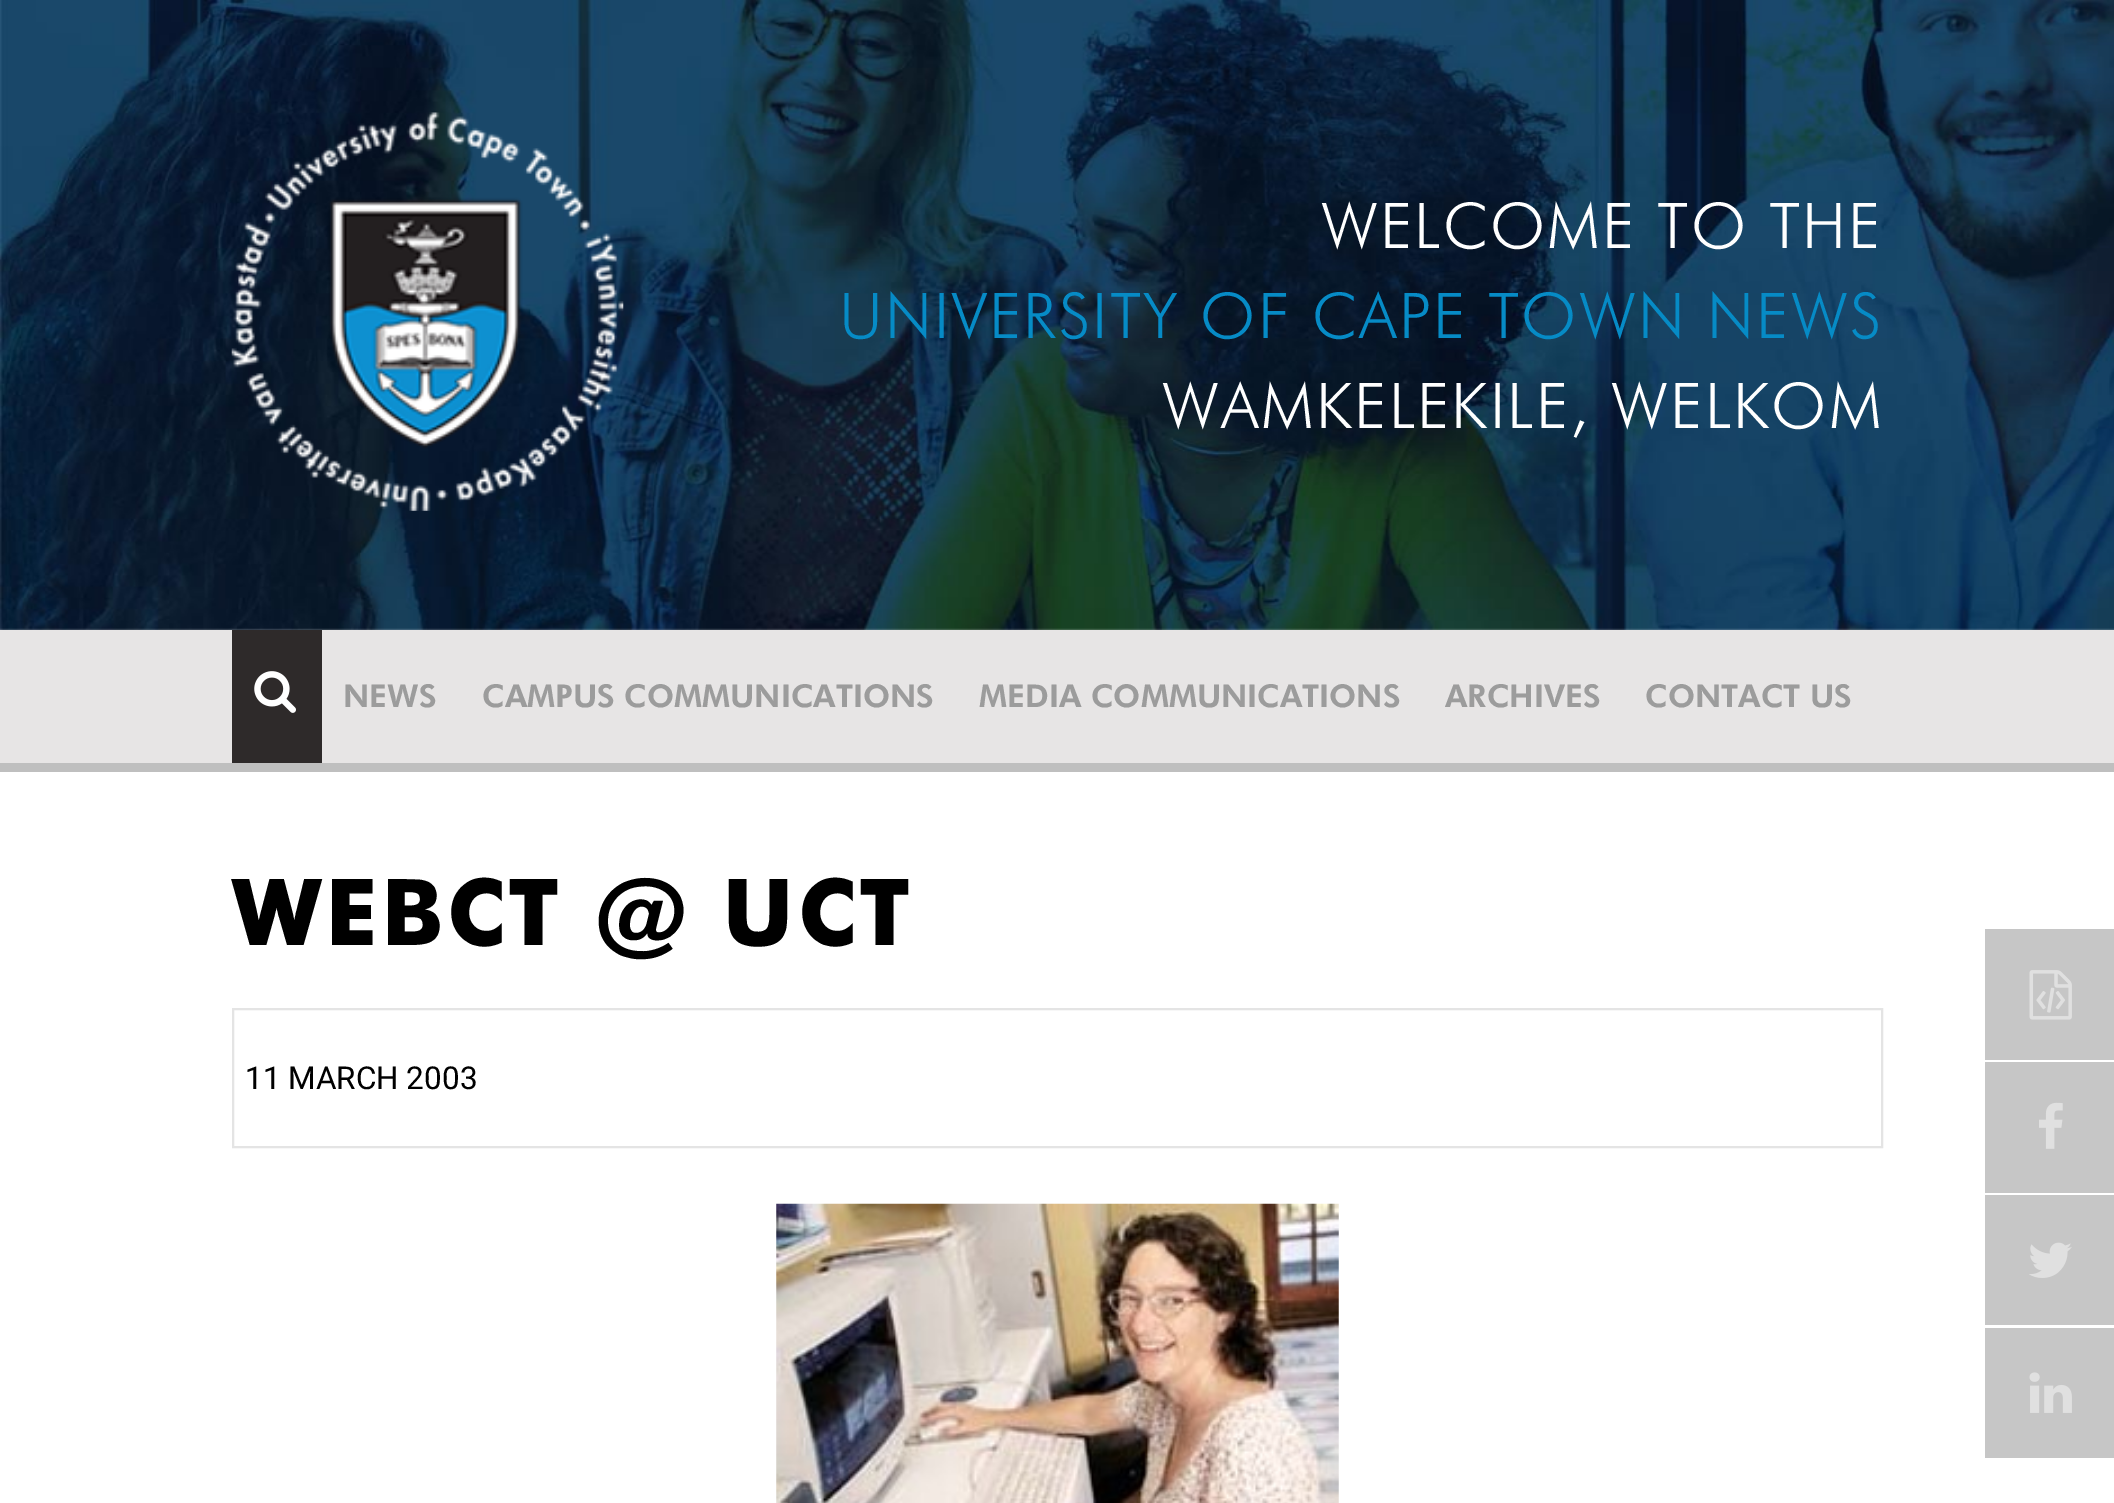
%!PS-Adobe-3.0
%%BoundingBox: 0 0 2114 1503
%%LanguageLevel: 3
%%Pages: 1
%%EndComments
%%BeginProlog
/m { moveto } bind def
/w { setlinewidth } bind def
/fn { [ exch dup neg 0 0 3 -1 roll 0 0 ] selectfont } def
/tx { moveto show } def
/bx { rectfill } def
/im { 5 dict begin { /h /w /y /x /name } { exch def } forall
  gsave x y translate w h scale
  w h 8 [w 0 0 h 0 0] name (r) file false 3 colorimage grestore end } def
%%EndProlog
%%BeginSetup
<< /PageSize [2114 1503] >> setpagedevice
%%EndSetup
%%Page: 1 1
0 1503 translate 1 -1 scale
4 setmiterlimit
1 setgray
0 0 2114 1503 bx
(image0.raw) 0 0 2114 630 im
(image1.raw) 231 112 393 399 im
/Futura-Light 63 fn
1321 248 m 2.25 0 (WELCOME TO THE) ashow
0.024 0.545 0.776 setrgbcolor
839 338 m 2.25 0 (UNIVERSITY OF CAPE TOWN NEWS) ashow
1 setgray
1162 428 m 2.25 0 (WAMKELEKILE, WELKOM) ashow
0.906 0.898 0.898 setrgbcolor
0 630 2114 133 bx
0.18 0.165 0.165 setrgbcolor
232 630 90 133 bx
(image2.raw) 254 671 42 42 im
/Futura-Black 31.5 fn
0.612 setgray
(NEWS) 343 707 tx
(CAMPUS COMMUNICATIONS) 482 707 tx
(MEDIA COMMUNICATIONS) 979 707 tx
(ARCHIVES) 1445 707 tx
(CONTACT US) 1645 707 tx
0.749 setgray
0 763 2114 9 bx
/Futura-Bold 92.25 fn
0 setgray
232 945 m 3.4 0 (WEBCT @ UCT) ashow
0.894 setgray
2 w
233 1009 1649 138 rectstroke
/Roboto-Regular 31.5 fn
0 setgray
(11 MARCH 2003) 245 1089 tx
(image3.raw) 776 1203 563 300 im
0.776 setgray
1985 929 129 131 bx
(image4.raw) 2029 970 43 50 im
1985 1062 129 131 bx
(image5.raw) 2039 1102 24 47 im
1985 1195 129 130 bx
(image6.raw) 2029 1242 43 36 im
1985 1328 129 130 bx
(image7.raw) 2029 1372 43 41 im
showpage
%%EOF
